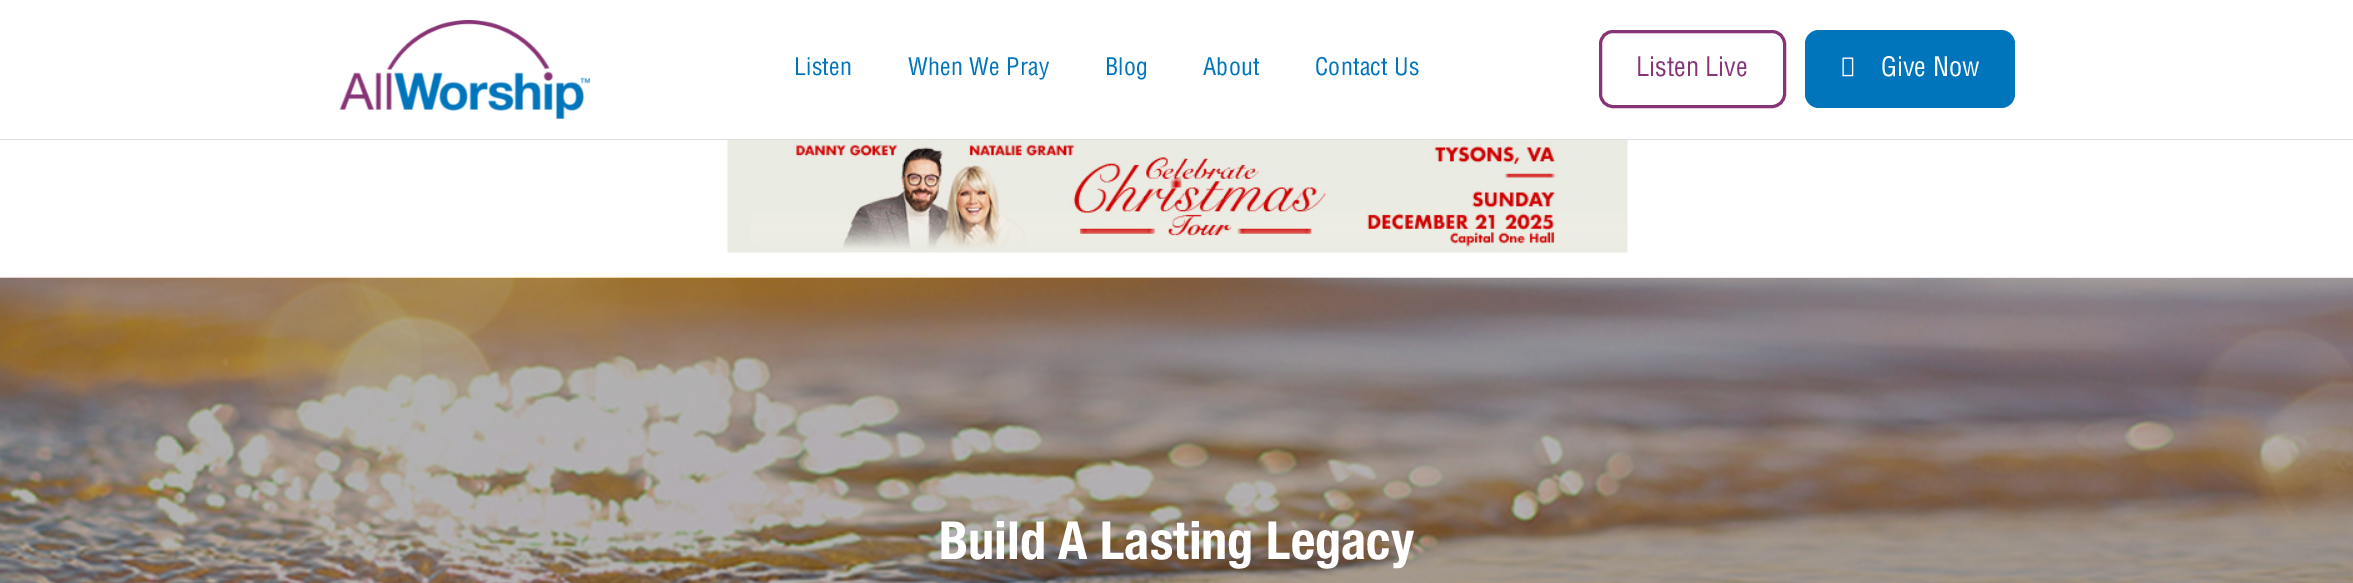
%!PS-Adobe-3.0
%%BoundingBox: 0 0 2353 583
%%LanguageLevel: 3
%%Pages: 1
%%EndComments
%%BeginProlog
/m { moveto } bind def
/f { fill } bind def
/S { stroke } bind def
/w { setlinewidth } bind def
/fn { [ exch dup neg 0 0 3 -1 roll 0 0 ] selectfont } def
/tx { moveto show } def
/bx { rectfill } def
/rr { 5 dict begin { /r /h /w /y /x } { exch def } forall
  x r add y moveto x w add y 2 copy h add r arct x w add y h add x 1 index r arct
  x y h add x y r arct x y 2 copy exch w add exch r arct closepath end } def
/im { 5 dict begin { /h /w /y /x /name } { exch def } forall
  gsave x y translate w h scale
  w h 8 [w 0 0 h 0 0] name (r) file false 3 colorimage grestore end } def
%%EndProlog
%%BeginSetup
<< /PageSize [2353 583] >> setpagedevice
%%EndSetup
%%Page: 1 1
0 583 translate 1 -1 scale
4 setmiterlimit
1 setgray
0 0 2353 583 bx
0.867 setgray
0 139 2353 1 bx
(image0.raw) 339 20 251 99 im
/Helvetica-Medium 23.75 fn
0 0.459 0.737 setrgbcolor
794 75 m 0.25 0 (Listen) ashow
908 75 m 0.25 0 (When We Pray) ashow
1105 75 m 0.25 0 (Blog) ashow
1203 75 m 0.25 0 (About) ashow
1315 75 m 0.25 0 (Contact Us) ashow
0.533 0.2 0.463 setrgbcolor
3 w
1600.5 31.5 184 75 12.5 rr S
/Helvetica-Medium 26.25 fn
(Listen Live) 1636 76 tx
0 0.459 0.737 setrgbcolor
1805 30 210 78 14 rr f
(image1.raw) 1842 57 12 20 im
1 setgray
(Give Now) 1881 76 tx
(image2.raw) 727 140 901 113 im
(image3.raw) 0 277 2353 306 im
/HelveticaNeue-Bold 52.5 fn
(Build A Lasting Legacy) 939 559 tx
showpage
%%EOF
